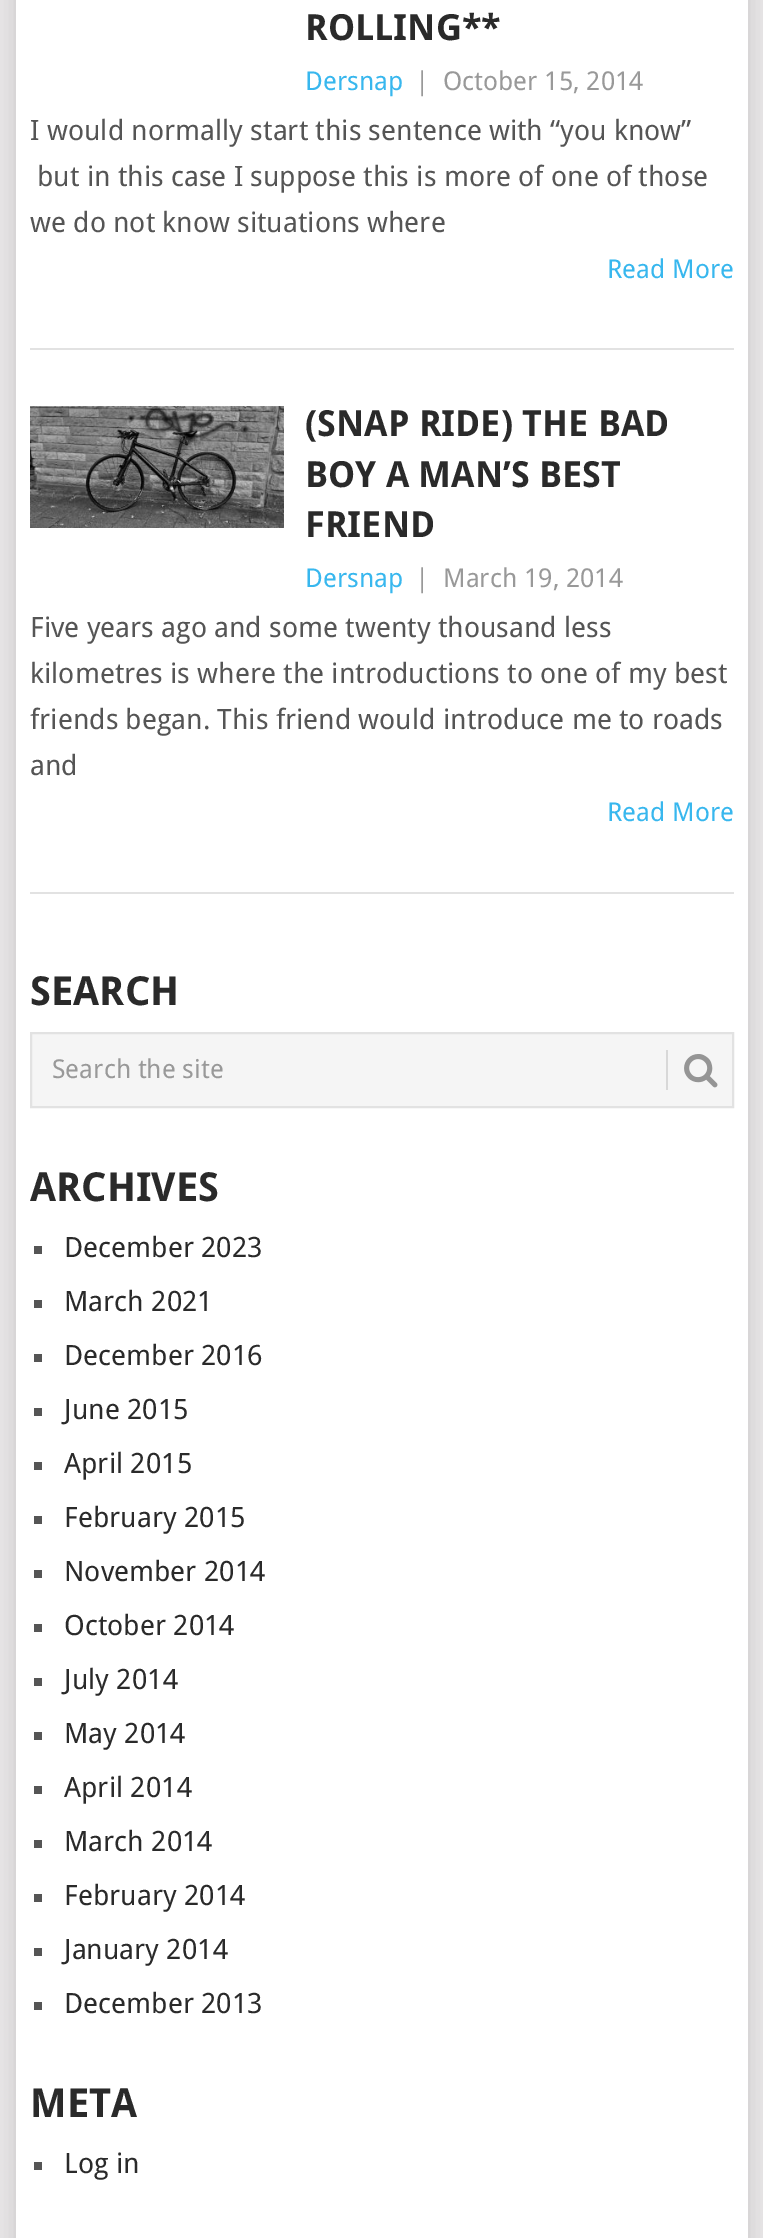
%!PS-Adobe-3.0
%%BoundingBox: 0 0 763 2238
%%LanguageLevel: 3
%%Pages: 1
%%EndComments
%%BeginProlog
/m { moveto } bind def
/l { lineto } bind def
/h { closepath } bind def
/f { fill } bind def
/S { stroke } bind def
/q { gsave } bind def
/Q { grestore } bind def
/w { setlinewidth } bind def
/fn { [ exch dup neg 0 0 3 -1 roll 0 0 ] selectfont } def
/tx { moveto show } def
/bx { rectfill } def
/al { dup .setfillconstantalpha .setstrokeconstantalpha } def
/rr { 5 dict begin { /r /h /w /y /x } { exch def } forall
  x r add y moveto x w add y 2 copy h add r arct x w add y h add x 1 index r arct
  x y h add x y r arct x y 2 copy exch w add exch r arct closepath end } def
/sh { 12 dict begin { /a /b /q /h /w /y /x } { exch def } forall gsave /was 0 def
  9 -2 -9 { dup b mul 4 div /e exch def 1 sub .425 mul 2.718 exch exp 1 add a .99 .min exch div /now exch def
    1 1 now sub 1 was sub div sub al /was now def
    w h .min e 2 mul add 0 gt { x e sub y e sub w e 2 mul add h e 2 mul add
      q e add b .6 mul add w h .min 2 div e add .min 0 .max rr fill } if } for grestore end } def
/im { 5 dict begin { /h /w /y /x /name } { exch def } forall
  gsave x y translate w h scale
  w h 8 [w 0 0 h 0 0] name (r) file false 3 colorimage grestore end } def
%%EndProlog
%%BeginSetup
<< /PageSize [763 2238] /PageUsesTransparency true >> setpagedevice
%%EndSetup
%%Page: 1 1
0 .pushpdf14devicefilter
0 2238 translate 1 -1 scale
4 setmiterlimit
0.906 0.898 0.902 setrgbcolor
0 0 763 2238 bx
0.196 setgray
16 -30 732 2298 0 10 0.17 sh
1 setgray
16 0 732 2238 bx
0.886 setgray
30 348 704 2 bx
/DroidSans-Bold 36 fn
0.165 setgray
(ROLLING**) 305 40 tx
/DroidSans-Regular 26 fn
0.22 0.718 0.933 setrgbcolor
(Dersnap) 305 90 tx
0.6 setgray
(|) 415 90 tx
(October 15, 2014) 443 90 tx
/DroidSans-Regular 28 fn
0.333 setgray
(I would normally start this sentence with “you know”) 30 140 tx
(but in this case I suppose this is more of one of those) 37 186 tx
(we do not know situations where) 30 232 tx
/DroidSans-Regular 26 fn
0.22 0.718 0.933 setrgbcolor
(Read More) 607 278 tx
0.886 setgray
30 892 704 2 bx
(image0.raw) 30 406 254 122 im
/DroidSans-Bold 36 fn
0.165 setgray
(\(SNAP RIDE\) THE BAD) 305 436 tx
(BOY A MAN’S BEST) 305 487 tx
(FRIEND) 305 537 tx
/DroidSans-Regular 26 fn
0.22 0.718 0.933 setrgbcolor
(Dersnap) 305 587 tx
0.6 setgray
(|) 415 587 tx
(March 19, 2014) 443 587 tx
/DroidSans-Regular 28 fn
0.333 setgray
(Five years ago and some twenty thousand less) 30 637 tx
(kilometres is where the introductions to one of my best) 30 683 tx
(friends began. This friend would introduce me to roads) 30 729 tx
(and) 30 775 tx
/DroidSans-Regular 26 fn
0.22 0.718 0.933 setrgbcolor
(Read More) 607 821 tx
/DroidSans-Bold 40 fn
0.165 setgray
(SEARCH) 30 1005 tx
0.961 setgray
31 1033 m 733 1033 l 733 1107 l 31 1107 l h q f Q
0.886 setgray
2 w
S
/DroidSans-Regular 26 fn
0.6 setgray
(Search the site) 52 1078 tx
0.847 setgray
666 1050 2 40 bx
(image1.raw) 684 1054 34 34 im
/DroidSans-Bold 40 fn
0.165 setgray
(ARCHIVES) 30 1201 tx
0.333 setgray
34 1246 8 8 bx
/DroidSans-Regular 28 fn
0.165 setgray
(December 2023) 64 1257 tx
0.333 setgray
34 1300 8 8 bx
0.165 setgray
(March 2021) 64 1311 tx
0.333 setgray
34 1354 8 8 bx
0.165 setgray
(December 2016) 64 1365 tx
0.333 setgray
34 1408 8 8 bx
0.165 setgray
(June 2015) 64 1419 tx
0.333 setgray
34 1462 8 8 bx
0.165 setgray
(April 2015) 64 1473 tx
0.333 setgray
34 1516 8 8 bx
0.165 setgray
(February 2015) 64 1527 tx
0.333 setgray
34 1570 8 8 bx
0.165 setgray
(November 2014) 64 1581 tx
0.333 setgray
34 1624 8 8 bx
0.165 setgray
(October 2014) 64 1635 tx
0.333 setgray
34 1678 8 8 bx
0.165 setgray
(July 2014) 64 1689 tx
0.333 setgray
34 1732 8 8 bx
0.165 setgray
(May 2014) 64 1743 tx
0.333 setgray
34 1786 8 8 bx
0.165 setgray
(April 2014) 64 1797 tx
0.333 setgray
34 1840 8 8 bx
0.165 setgray
(March 2014) 64 1851 tx
0.333 setgray
34 1894 8 8 bx
0.165 setgray
(February 2014) 64 1905 tx
0.333 setgray
34 1948 8 8 bx
0.165 setgray
(January 2014) 64 1959 tx
0.333 setgray
34 2002 8 8 bx
0.165 setgray
(December 2013) 64 2013 tx
/DroidSans-Bold 40 fn
(META) 30 2117 tx
0.333 setgray
34 2162 8 8 bx
/DroidSans-Regular 28 fn
0.165 setgray
(Log in) 64 2173 tx
.poppdf14devicefilter showpage
%%EOF
